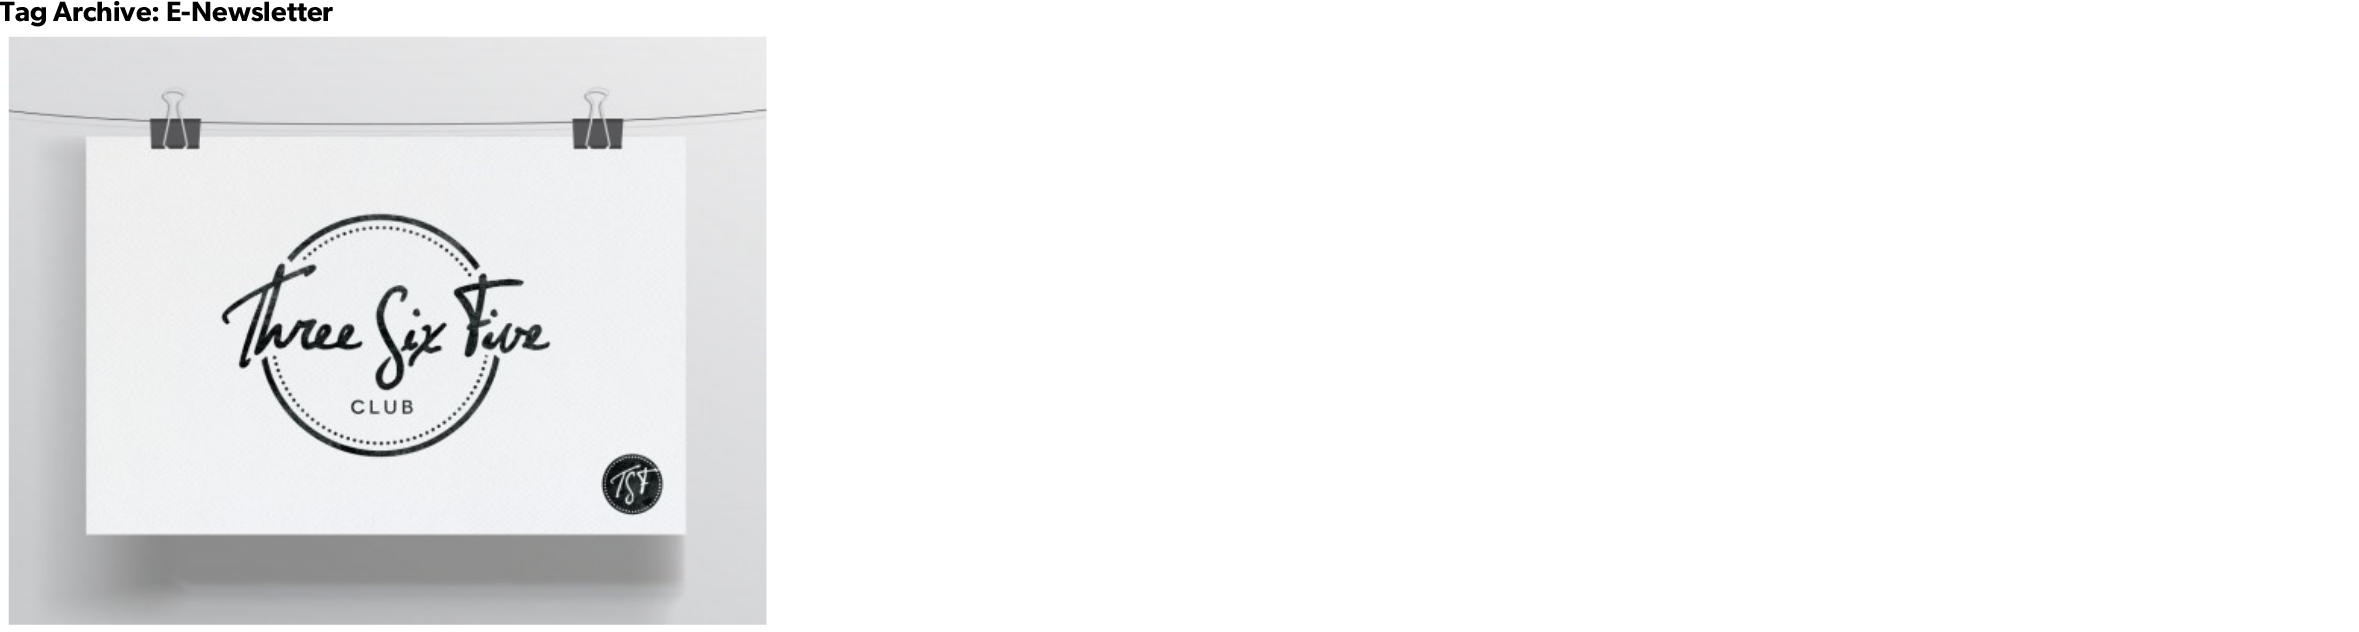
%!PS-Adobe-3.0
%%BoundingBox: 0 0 2359 632
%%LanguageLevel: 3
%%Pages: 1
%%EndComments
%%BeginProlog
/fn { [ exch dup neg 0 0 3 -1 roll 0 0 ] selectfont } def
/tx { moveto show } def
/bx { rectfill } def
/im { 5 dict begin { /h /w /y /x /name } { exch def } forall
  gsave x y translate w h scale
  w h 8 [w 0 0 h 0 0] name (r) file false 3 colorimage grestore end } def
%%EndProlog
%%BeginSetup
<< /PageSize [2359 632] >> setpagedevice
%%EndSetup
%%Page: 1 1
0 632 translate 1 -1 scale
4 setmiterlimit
1 setgray
0 0 2359 632 bx
/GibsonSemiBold-SemiBold 28 fn
0 setgray
(Tag Archive: E-Newsletter) 0 21 tx
(image0.raw) 8 36 759 589 im
showpage
%%EOF
